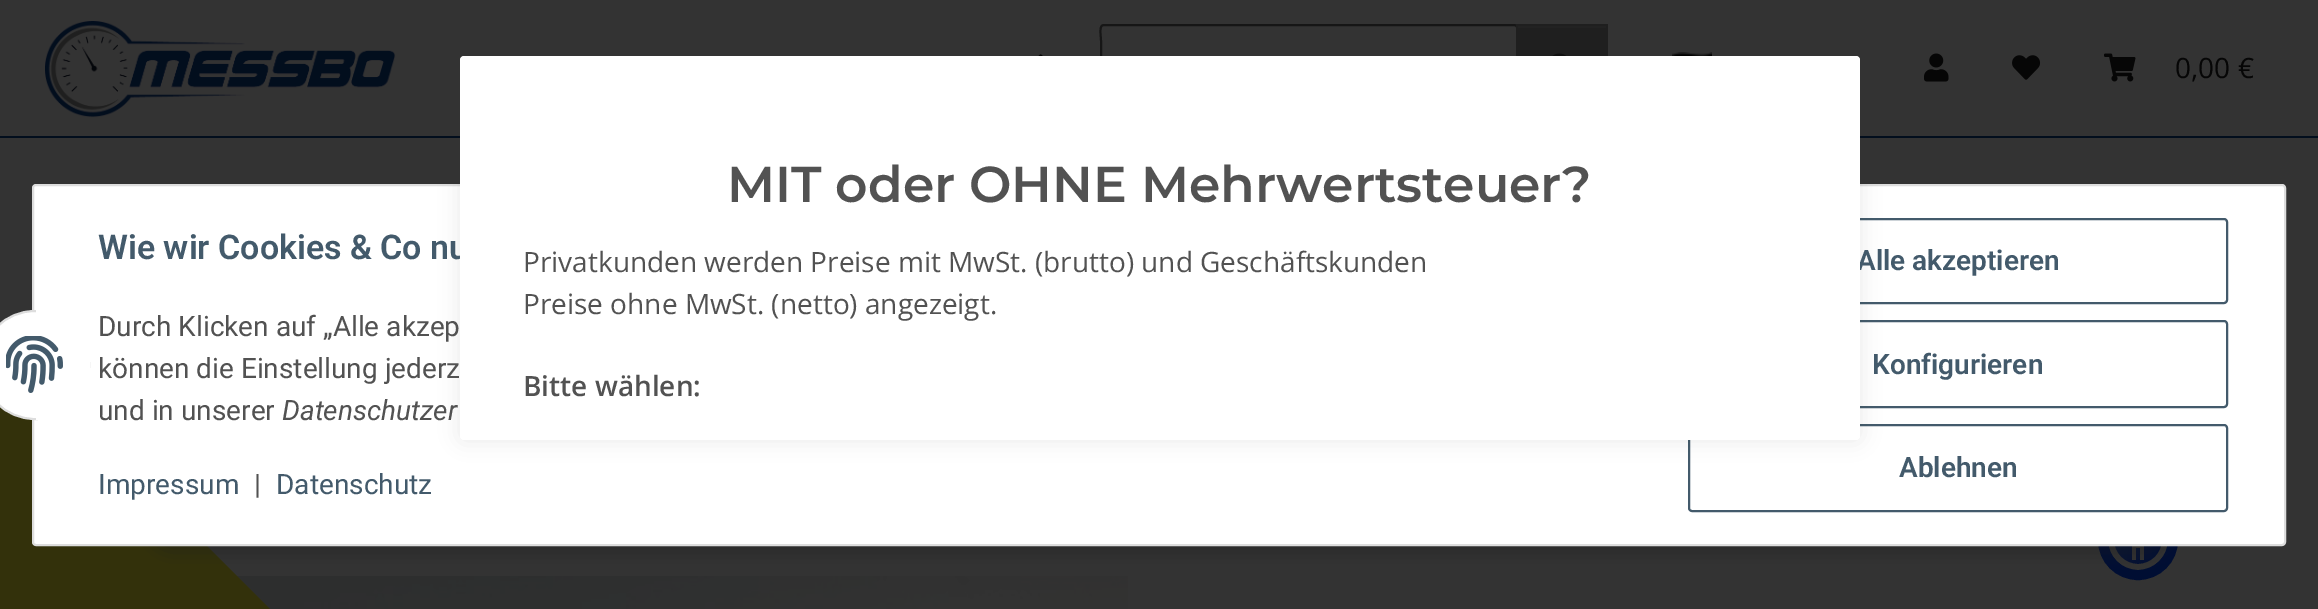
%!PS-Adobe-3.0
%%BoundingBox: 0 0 2318 609
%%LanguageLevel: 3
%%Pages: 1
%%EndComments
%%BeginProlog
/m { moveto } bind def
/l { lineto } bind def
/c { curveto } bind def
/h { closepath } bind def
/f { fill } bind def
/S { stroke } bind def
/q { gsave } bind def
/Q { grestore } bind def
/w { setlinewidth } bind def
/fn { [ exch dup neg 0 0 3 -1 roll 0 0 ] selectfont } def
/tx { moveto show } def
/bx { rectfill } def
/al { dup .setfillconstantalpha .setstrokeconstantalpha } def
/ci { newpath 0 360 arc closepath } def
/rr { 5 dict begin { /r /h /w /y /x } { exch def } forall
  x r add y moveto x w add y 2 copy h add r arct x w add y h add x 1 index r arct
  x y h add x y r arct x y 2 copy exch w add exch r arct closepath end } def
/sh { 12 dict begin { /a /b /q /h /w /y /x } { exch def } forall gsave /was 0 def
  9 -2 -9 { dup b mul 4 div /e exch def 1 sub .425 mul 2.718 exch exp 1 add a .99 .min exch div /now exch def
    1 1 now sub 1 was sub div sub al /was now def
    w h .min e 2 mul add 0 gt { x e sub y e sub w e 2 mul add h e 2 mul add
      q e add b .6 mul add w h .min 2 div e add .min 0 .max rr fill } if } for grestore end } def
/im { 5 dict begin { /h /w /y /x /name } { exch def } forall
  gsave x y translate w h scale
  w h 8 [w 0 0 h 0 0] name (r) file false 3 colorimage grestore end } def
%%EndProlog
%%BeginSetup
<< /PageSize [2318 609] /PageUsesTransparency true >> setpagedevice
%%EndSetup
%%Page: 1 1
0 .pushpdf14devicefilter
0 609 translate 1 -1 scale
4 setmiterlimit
0.2 setgray
0 0 2318 609 bx
0.008 0.055 0.114 setrgbcolor
0 136 2318 2 bx
(image0.raw) 45 21 351 97 im
(image1.raw) 1038 54 5 2 im
0.086 setgray
2 w
1102 108 m 1101 106 l 1101 41 l 1101 35 1098.5 25 1104 25 c 1514 25 l 1519.5 25 1517 35 1517 41 c 1517 106 l 1516 108 l S
0.122 setgray
1516 24 92 32 bx
0.133 setgray
1518 26 88 2 bx
(image2.raw) 1552 53 15 3 im
(image3.raw) 1672 52 40 4 im
(image4.raw) 1924 53 25 29 im
(image5.raw) 2012 55 29 25 im
(image6.raw) 2104 53 32 29 im
/OpenSans-Regular 28 fn
0.024 setgray
(0,00 €) 2175 78 tx
(image9.raw) 237 576 891 33 im
0.2 0.192 0.043 setrgbcolor
-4 335 m 279 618 l 104 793 l -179 510 l h f
q
2108 510 60 60 30 rr clip newpath
q 2114 546 m 2162 546 l 2162 564 l 2114 564 l h clip newpath
<< /ShadingType 2 /ColorSpace /DeviceRGB /Coords [2112 537 2164 543] /Extend [true true] /Function << /FunctionType 2 /Domain [0 1] /C0 [0.039 0.086 0.2] /C1 [0 0.055 0.2] /N 1 >> >> shfill Q
Q
0.2 setgray
6 w
2138 540 27 ci S
0 0.055 0.2 setrgbcolor
10 w
2138 540 35 ci S
(image8.raw) 2132 546 12 14 im
0.11 setgray
146 488 2026 64 32 10 0.45 sh
1 setgray
33 185 2252 360 3 rr q f Q
0.867 setgray
2 w
S
0.263 0.353 0.42 setrgbcolor
1689 219 538 84 3 rr S
1689 321 538 86 3 rr S
1689 425 538 86 3 rr S
0.11 setgray
460 56 1400 384 4 10 0.1 sh
/Roboto-SemiBold 34 fn
0.263 0.353 0.42 setrgbcolor
(Wie wir Cookies & Co nu) 98 259 tx
/Roboto-SemiBold 28 fn
(Alle akzeptieren) 1857 270 tx
1 setgray
460 56 1400 384 4 rr f
/Montserrat-SemiBold 50.4 fn
0.322 setgray
(MIT oder OHNE Mehrwertsteuer?) 727 202 tx
/OpenSans-Regular 28 fn
(Privatkunden werden Preise mit MwSt. \(brutto\) und Geschäftskunden) 523 272 tx
(Preise ohne MwSt. \(netto\) angezeigt.) 523 314 tx
/OpenSans-SemiBold 28 fn
(Bitte wählen:) 523 396 tx
1 setgray
35 365 54 ci q f Q
0.867 setgray
S
1 setgray
36 310 54 110 bx
(image7.raw) 6 336 57 57 im
/Roboto-Regular 28 fn
0.322 setgray
(Durch Klicken auf „Alle akzep) 98 336 tx
(können die Einstellung jederz) 98 378 tx
(und in unserer) 98 420 tx
/Roboto-Italic 28 fn
(Datenschutzer) 282 420 tx
/Roboto-Regular 28 fn
0.263 0.353 0.42 setrgbcolor
(Impressum) 98 494 tx
0.322 setgray
(|) 254 494 tx
0.263 0.353 0.42 setrgbcolor
(Datenschutz) 276 494 tx
/Roboto-SemiBold 28 fn
(Konfigurieren) 1872 374 tx
(Ablehnen) 1899 477 tx
.poppdf14devicefilter showpage
%%EOF
